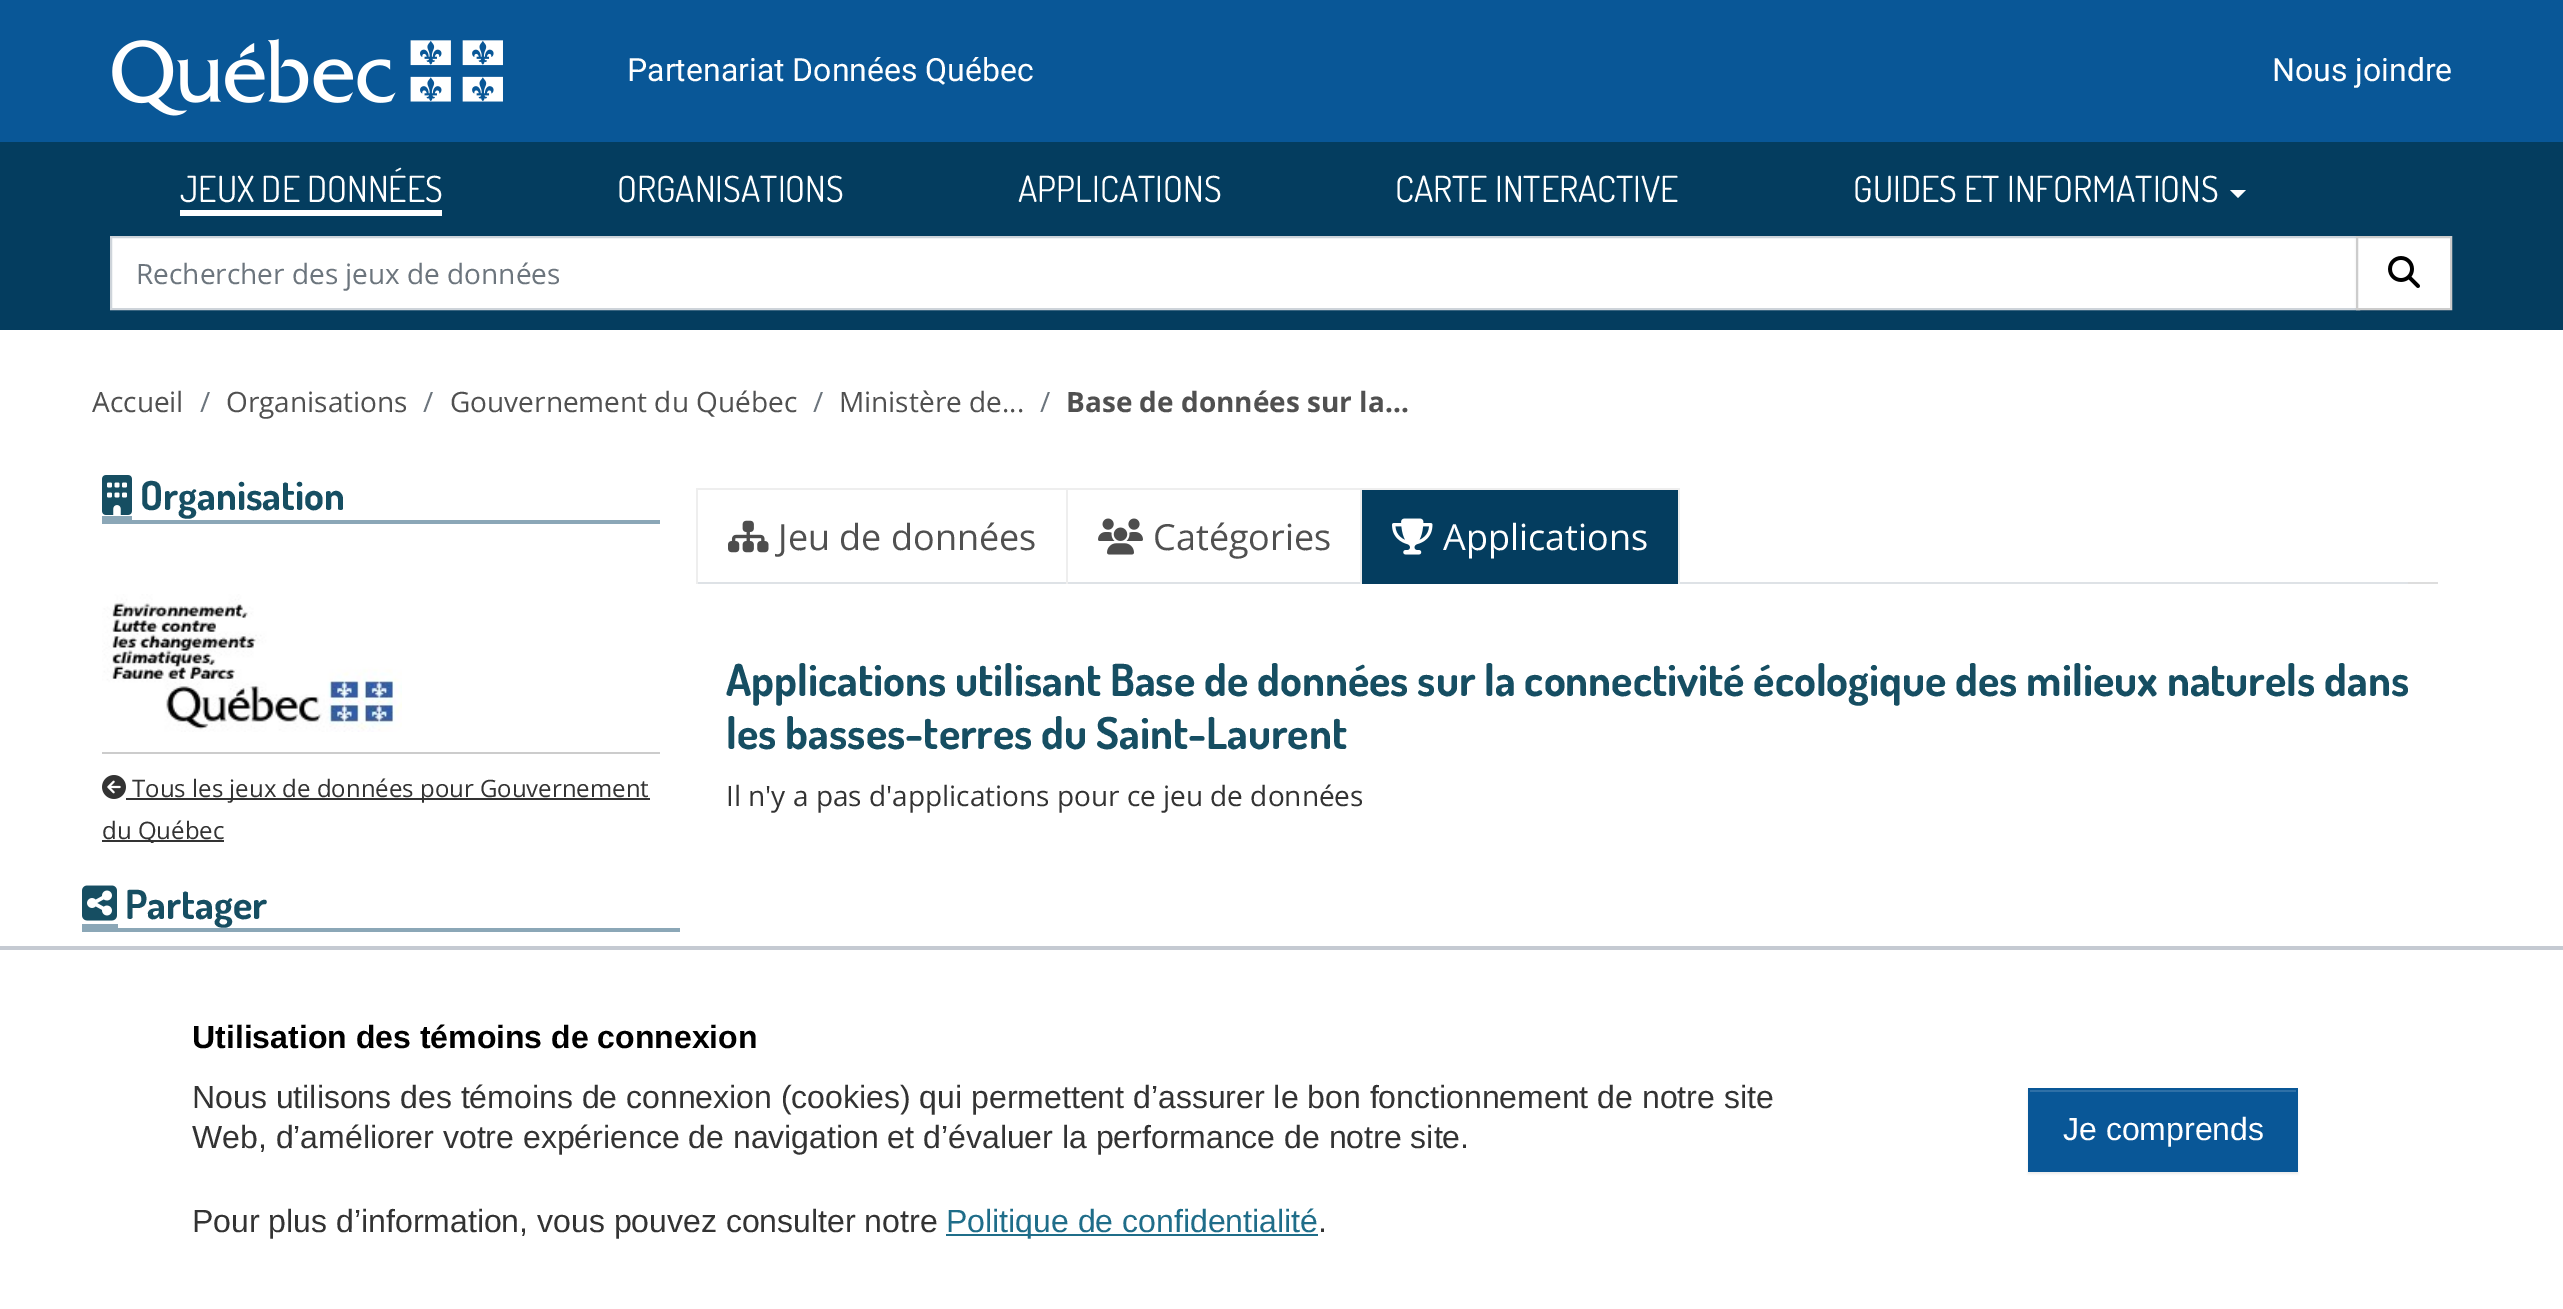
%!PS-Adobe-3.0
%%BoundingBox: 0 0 2563 1309
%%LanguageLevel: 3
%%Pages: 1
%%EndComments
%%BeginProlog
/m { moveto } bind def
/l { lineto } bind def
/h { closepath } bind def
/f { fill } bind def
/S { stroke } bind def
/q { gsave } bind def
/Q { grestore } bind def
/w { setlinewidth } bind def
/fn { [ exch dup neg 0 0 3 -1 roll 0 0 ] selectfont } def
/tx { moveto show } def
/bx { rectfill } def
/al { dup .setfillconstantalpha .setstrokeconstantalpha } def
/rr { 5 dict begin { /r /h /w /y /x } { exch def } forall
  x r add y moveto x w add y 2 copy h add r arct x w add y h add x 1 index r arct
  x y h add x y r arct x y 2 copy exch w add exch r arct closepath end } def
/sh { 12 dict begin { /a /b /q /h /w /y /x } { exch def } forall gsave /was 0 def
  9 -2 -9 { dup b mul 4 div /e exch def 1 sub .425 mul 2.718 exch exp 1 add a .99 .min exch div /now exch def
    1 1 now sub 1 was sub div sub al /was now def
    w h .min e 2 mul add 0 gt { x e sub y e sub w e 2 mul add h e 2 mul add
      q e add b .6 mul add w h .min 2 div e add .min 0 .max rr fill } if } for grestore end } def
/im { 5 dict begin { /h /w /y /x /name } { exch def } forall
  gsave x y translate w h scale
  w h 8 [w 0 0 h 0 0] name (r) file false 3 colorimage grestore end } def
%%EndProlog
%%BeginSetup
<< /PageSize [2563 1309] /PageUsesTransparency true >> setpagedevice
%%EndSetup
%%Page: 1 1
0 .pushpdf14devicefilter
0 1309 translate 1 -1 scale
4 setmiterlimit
1 setgray
0 0 2563 1309 bx
0.035 0.341 0.592 setrgbcolor
0 0 2563 142 bx
(image0.raw) 112 38 391 78 im
/Roboto-Regular 32 fn
1 setgray
(Partenariat Données Québec) 627 81 tx
(Nous joindre) 2272 81 tx
0.016 0.239 0.373 setrgbcolor
0 142 2563 188 bx
/Dosis-Regular 36 fn
1 setgray
(JEUX DE DONNÉES) 180 202 tx
180 210 262 6 bx
(ORGANISATIONS) 617 202 tx
(APPLICATIONS) 1018 202 tx
(CARTE INTERACTIVE) 1395 202 tx
(GUIDES ET INFORMATIONS) 1853 202 tx
2230 190 m 2246 190 l 2238 198 l h f
112 238 2244 70 bx
0.808 0.831 0.855 setrgbcolor
2 w
111 237 2248 72 rectstroke
/OpenSans-Regular 28 fn
0.424 0.459 0.49 setrgbcolor
(Rechercher des jeux de données) 136 284 tx
0 setgray
2356 238 96 74 0 1 0.07 sh
1 setgray
2357 237 m 2451 237 l 2451 309 l 2357 309 l h q f Q
0.8 setgray
S
(image1.raw) 2388 256 32 32 im
0.314 setgray
(Accueil) 92 412 tx
0.424 0.459 0.49 setrgbcolor
(/) 200 412 tx
0.314 setgray
(Organisations) 226 412 tx
0.424 0.459 0.49 setrgbcolor
(/) 423 412 tx
0.314 setgray
(Gouvernement du Québec) 450 412 tx
0.424 0.459 0.49 setrgbcolor
(/) 813 412 tx
0.314 setgray
(Ministère de...) 839 412 tx
0.424 0.459 0.49 setrgbcolor
(/) 1040 412 tx
/OpenSans-Bold 28 fn
0.314 setgray
(Base de données sur la...) 1066 412 tx
0.545 0.655 0.718 setrgbcolor
102 516 30 4 bx
102 520 558 4 bx
(image2.raw) 102 475 30 40 im
/Dosis-Bold 40 fn
0.086 0.306 0.384 setrgbcolor
(Organisation) 140 510 tx
(image3.raw) 102 594 300 138 im
0.8 setgray
102 752 558 2 bx
(image4.raw) 102 775 24 24 im
0.2 setgray
126 798 524 2 bx
/OpenSans-Regular 24 fn
(Tous les jeux de données pour Gouvernement) 132 797 tx
102 840 122 2 bx
(du Québec) 102 839 tx
0.545 0.655 0.718 setrgbcolor
82 924 36 4 bx
82 928 598 4 bx
(image5.raw) 82 885 35 36 im
/Dosis-Bold 40 fn
0.086 0.306 0.384 setrgbcolor
(Partager) 125 919 tx
0.867 setgray
2408 582 30 2 bx
0.871 0.886 0.902 setrgbcolor
696 582 1712 2 bx
0.933 setgray
696 488 984 2 bx
1066 488 2 96 bx
696 488 2 96 bx
(image6.raw) 728 520 41 33 im
/OpenSans-Regular 36 fn
0.314 setgray
(Jeu de données) 778 550 tx
0.933 setgray
1360 488 2 96 bx
(image7.raw) 1098 518 45 37 im
0.314 setgray
(Catégories) 1153 550 tx
0.016 0.239 0.373 setrgbcolor
1362 490 316 94 bx
0.933 setgray
1678 488 2 96 bx
(image8.raw) 1392 518 41 37 im
1 setgray
(Applications) 1443 550 tx
/Dosis-Bold 44 fn
0.086 0.306 0.384 setrgbcolor
(Applications utilisant Base de données sur la connectivité écologique des milieux naturels dans) 726 696 tx
(les basses-terres du Saint-Laurent) 726 749 tx
/OpenSans-Regular 28 fn
0.2 setgray
(Il n'y a pas d'applications pour ce jeu de données) 726 806 tx
0.773 0.792 0.824 setrgbcolor
0 946 2563 4 bx
/LiberationSans-Bold 32 fn
0 setgray
(Utilisation des témoins de connexion) 192 1048 tx
/LiberationSans-Regular 32 fn
0.2 setgray
(Nous utilisons des témoins de connexion \(cookies\) qui permettent d’assurer le bon fonctionnement de notre site) 192 1108 tx
(Web, d’améliorer votre expérience de navigation et d’évaluer la performance de notre site.) 192 1148 tx
(Pour plus d’information, vous pouvez consulter notre) 192 1232 tx
0.122 0.427 0.537 setrgbcolor
946 1234 372 2 bx
(Politique de confidentialité) 946 1232 tx
0.2 setgray
(.) 1318 1232 tx
0 setgray
2028 1090 270 84 0 1 0.07 sh
0.035 0.341 0.592 setrgbcolor
2028 1088 270 84 bx
0.18 0.439 0.655 setrgbcolor
2030 1090 266 2 bx
1 setgray
(Je comprends) 2063 1140 tx
.poppdf14devicefilter showpage
%%EOF
